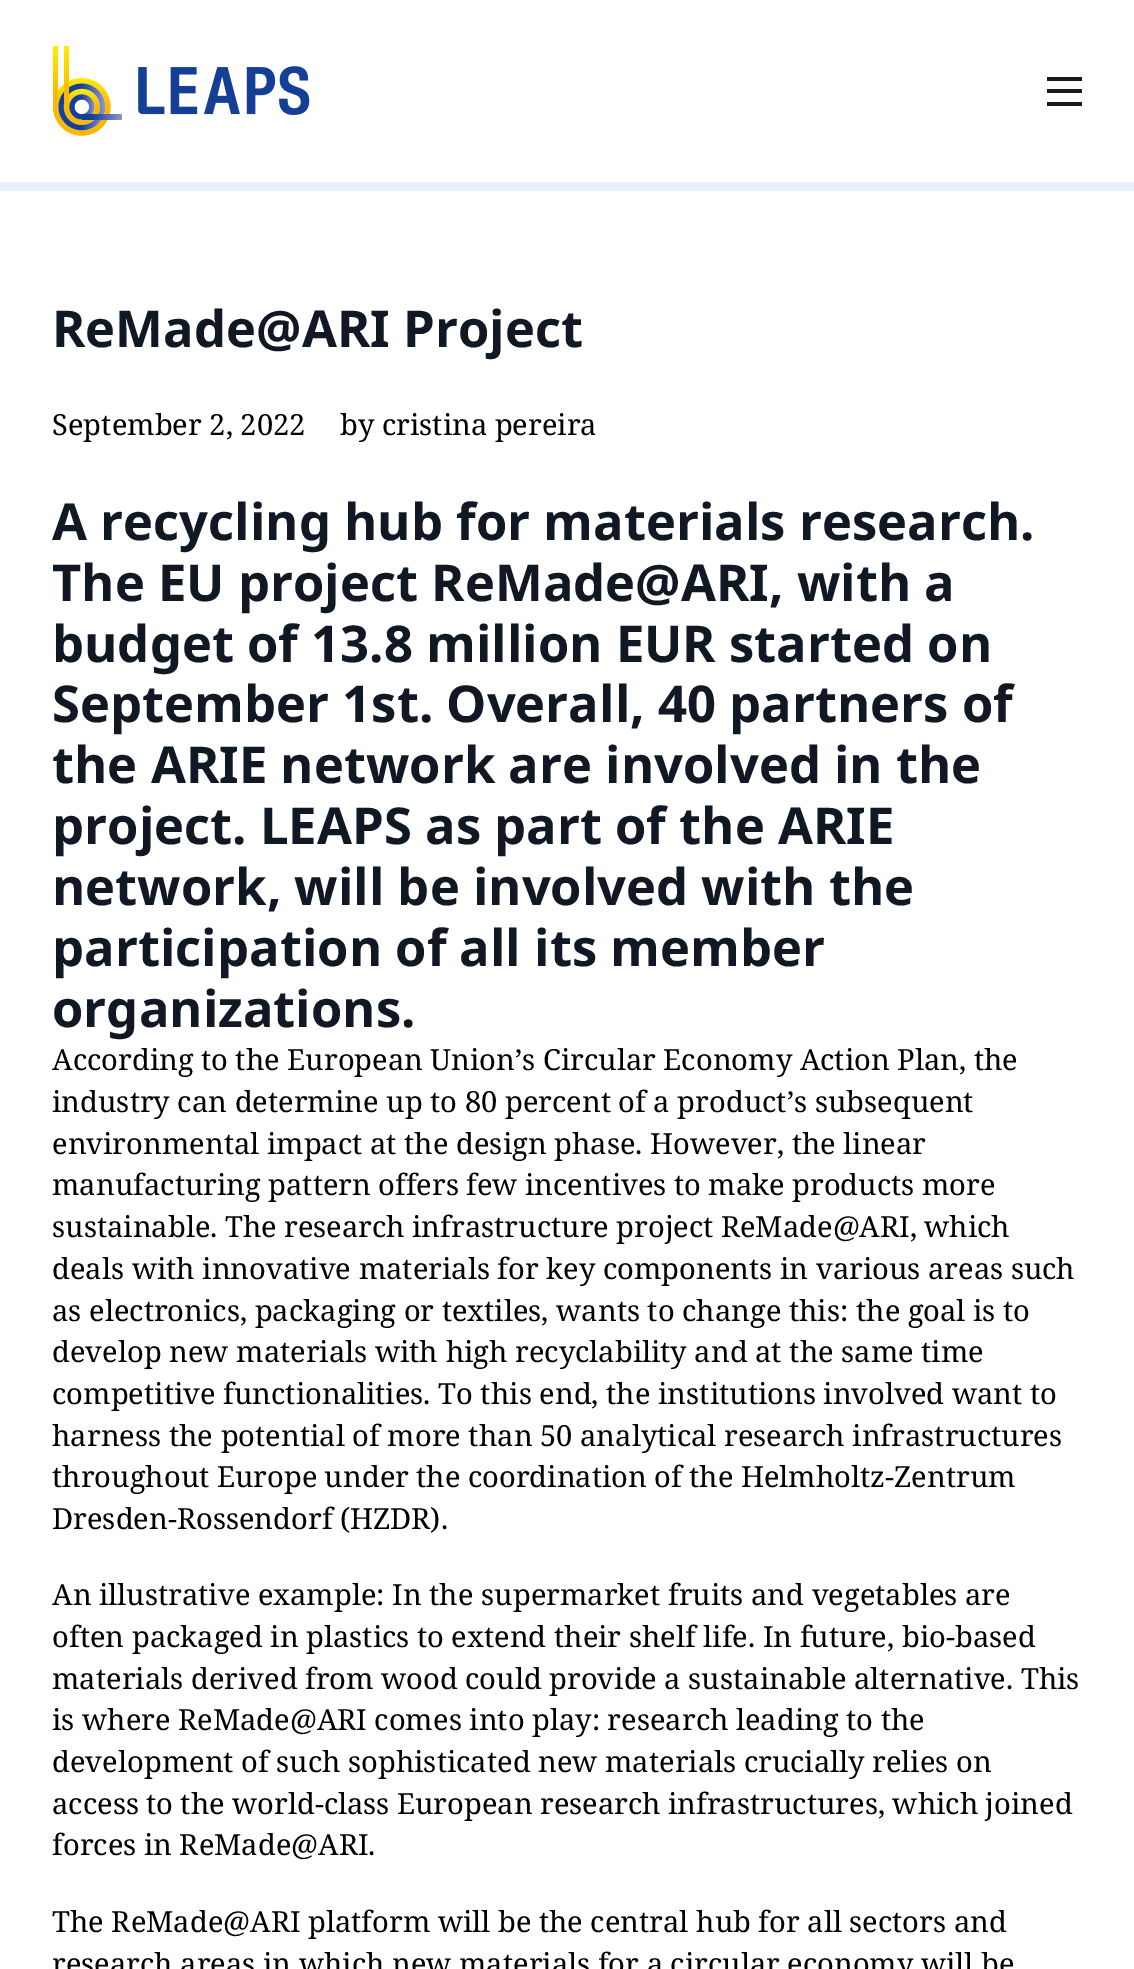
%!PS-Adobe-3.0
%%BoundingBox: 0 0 1134 1969
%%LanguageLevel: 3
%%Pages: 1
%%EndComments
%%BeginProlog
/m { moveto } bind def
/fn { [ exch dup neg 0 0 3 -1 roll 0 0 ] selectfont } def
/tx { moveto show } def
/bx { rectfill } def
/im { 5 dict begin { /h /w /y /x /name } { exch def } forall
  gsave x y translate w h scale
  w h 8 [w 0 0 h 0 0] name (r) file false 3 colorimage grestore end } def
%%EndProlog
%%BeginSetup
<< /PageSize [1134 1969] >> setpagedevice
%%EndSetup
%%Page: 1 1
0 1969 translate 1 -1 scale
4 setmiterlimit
1 setgray
0 0 1134 1969 bx
0.914 0.937 0.988 setrgbcolor
0 182 1134 9 bx
(image0.raw) 53 46 257 90 im
0.102 setgray
1047 77 35 4 bx
1047 89 35 4 bx
1047 102 35 4 bx
/NotoSans-Bold 50.75 fn
0.063 0.098 0.137 setrgbcolor
(ReMade@ARI Project) 52 347 tx
/NotoSerif-Regular 29.1 fn
0 setgray
(September 2, 2022) 52 435 tx
(by cristina pereira) 340 435 tx
/NotoSans-Bold 50.75 fn
0.063 0.098 0.137 setrgbcolor
(A recycling hub for materials research.) 52 540 tx
(The EU project ReMade@ARI,) 52 601 tx
(with a) 797 601 tx
(budget of 13.8 million EUR started on) 52 662 tx
(September 1st. Overall, 40 partners of) 52 722 tx
(the ARIE network are involved in the) 52 783 tx
(project. LEAPS as part of the ARIE) 52 844 tx
(network, will be involved with the) 52 905 tx
(participation of all its member) 52 966 tx
(organizations.) 52 1027 tx
/NotoSerif-Regular 29.1 fn
0 setgray
(According to the European Union’s Circular Economy Action Plan, the) 52 1070 tx
(industry can determine up to 80 percent of a product’s subsequent) 52 1112 tx
(environmental impact at the design phase. However, the linear) 52 1154 tx
52 1195 m -0.25 0 32 (manufacturing pattern offers few incentives to make products more) widthshow
52 1237 m -0.25 0 32 (sustainable. The research infrastructure project ReMade@ARI, which) widthshow
(deals with innovative materials for key components in various areas such) 52 1279 tx
(as electronics, packaging or textiles, wants to change this: the goal is to) 52 1321 tx
(develop new materials with high recyclability and at the same time) 52 1362 tx
(competitive functionalities. To this end, the institutions involved want to) 52 1404 tx
(harness the potential of more than 50 analytical research infrastructures) 52 1446 tx
52 1487 m -0.25 0 32 (throughout Europe under the coordination of the Helmholtz-Zentrum) widthshow
(Dresden-Rossendorf \(HZDR\).) 52 1529 tx
(An illustrative example: In the supermarket fruits and vegetables are) 52 1605 tx
(often packaged in plastics to extend their shelf life. In future, bio-based) 52 1647 tx
52 1689 m -0.1 0 32 (materials derived from wood could provide a sustainable alternative. This) widthshow
(is where ReMade@ARI comes into play: research leading to the) 52 1730 tx
52 1772 m -0.1 0 32 (development of such sophisticated new materials crucially relies on) widthshow
52 1814 m -0.25 0 32 (access to the world-class European research infrastructures, which joined) widthshow
(forces in ReMade@ARI.) 52 1855 tx
(The ReMade@ARI platform will be the central hub for all sectors and) 52 1932 tx
(research areas in which new materials for a circular economy will be) 52 1974 tx
showpage
%%EOF
